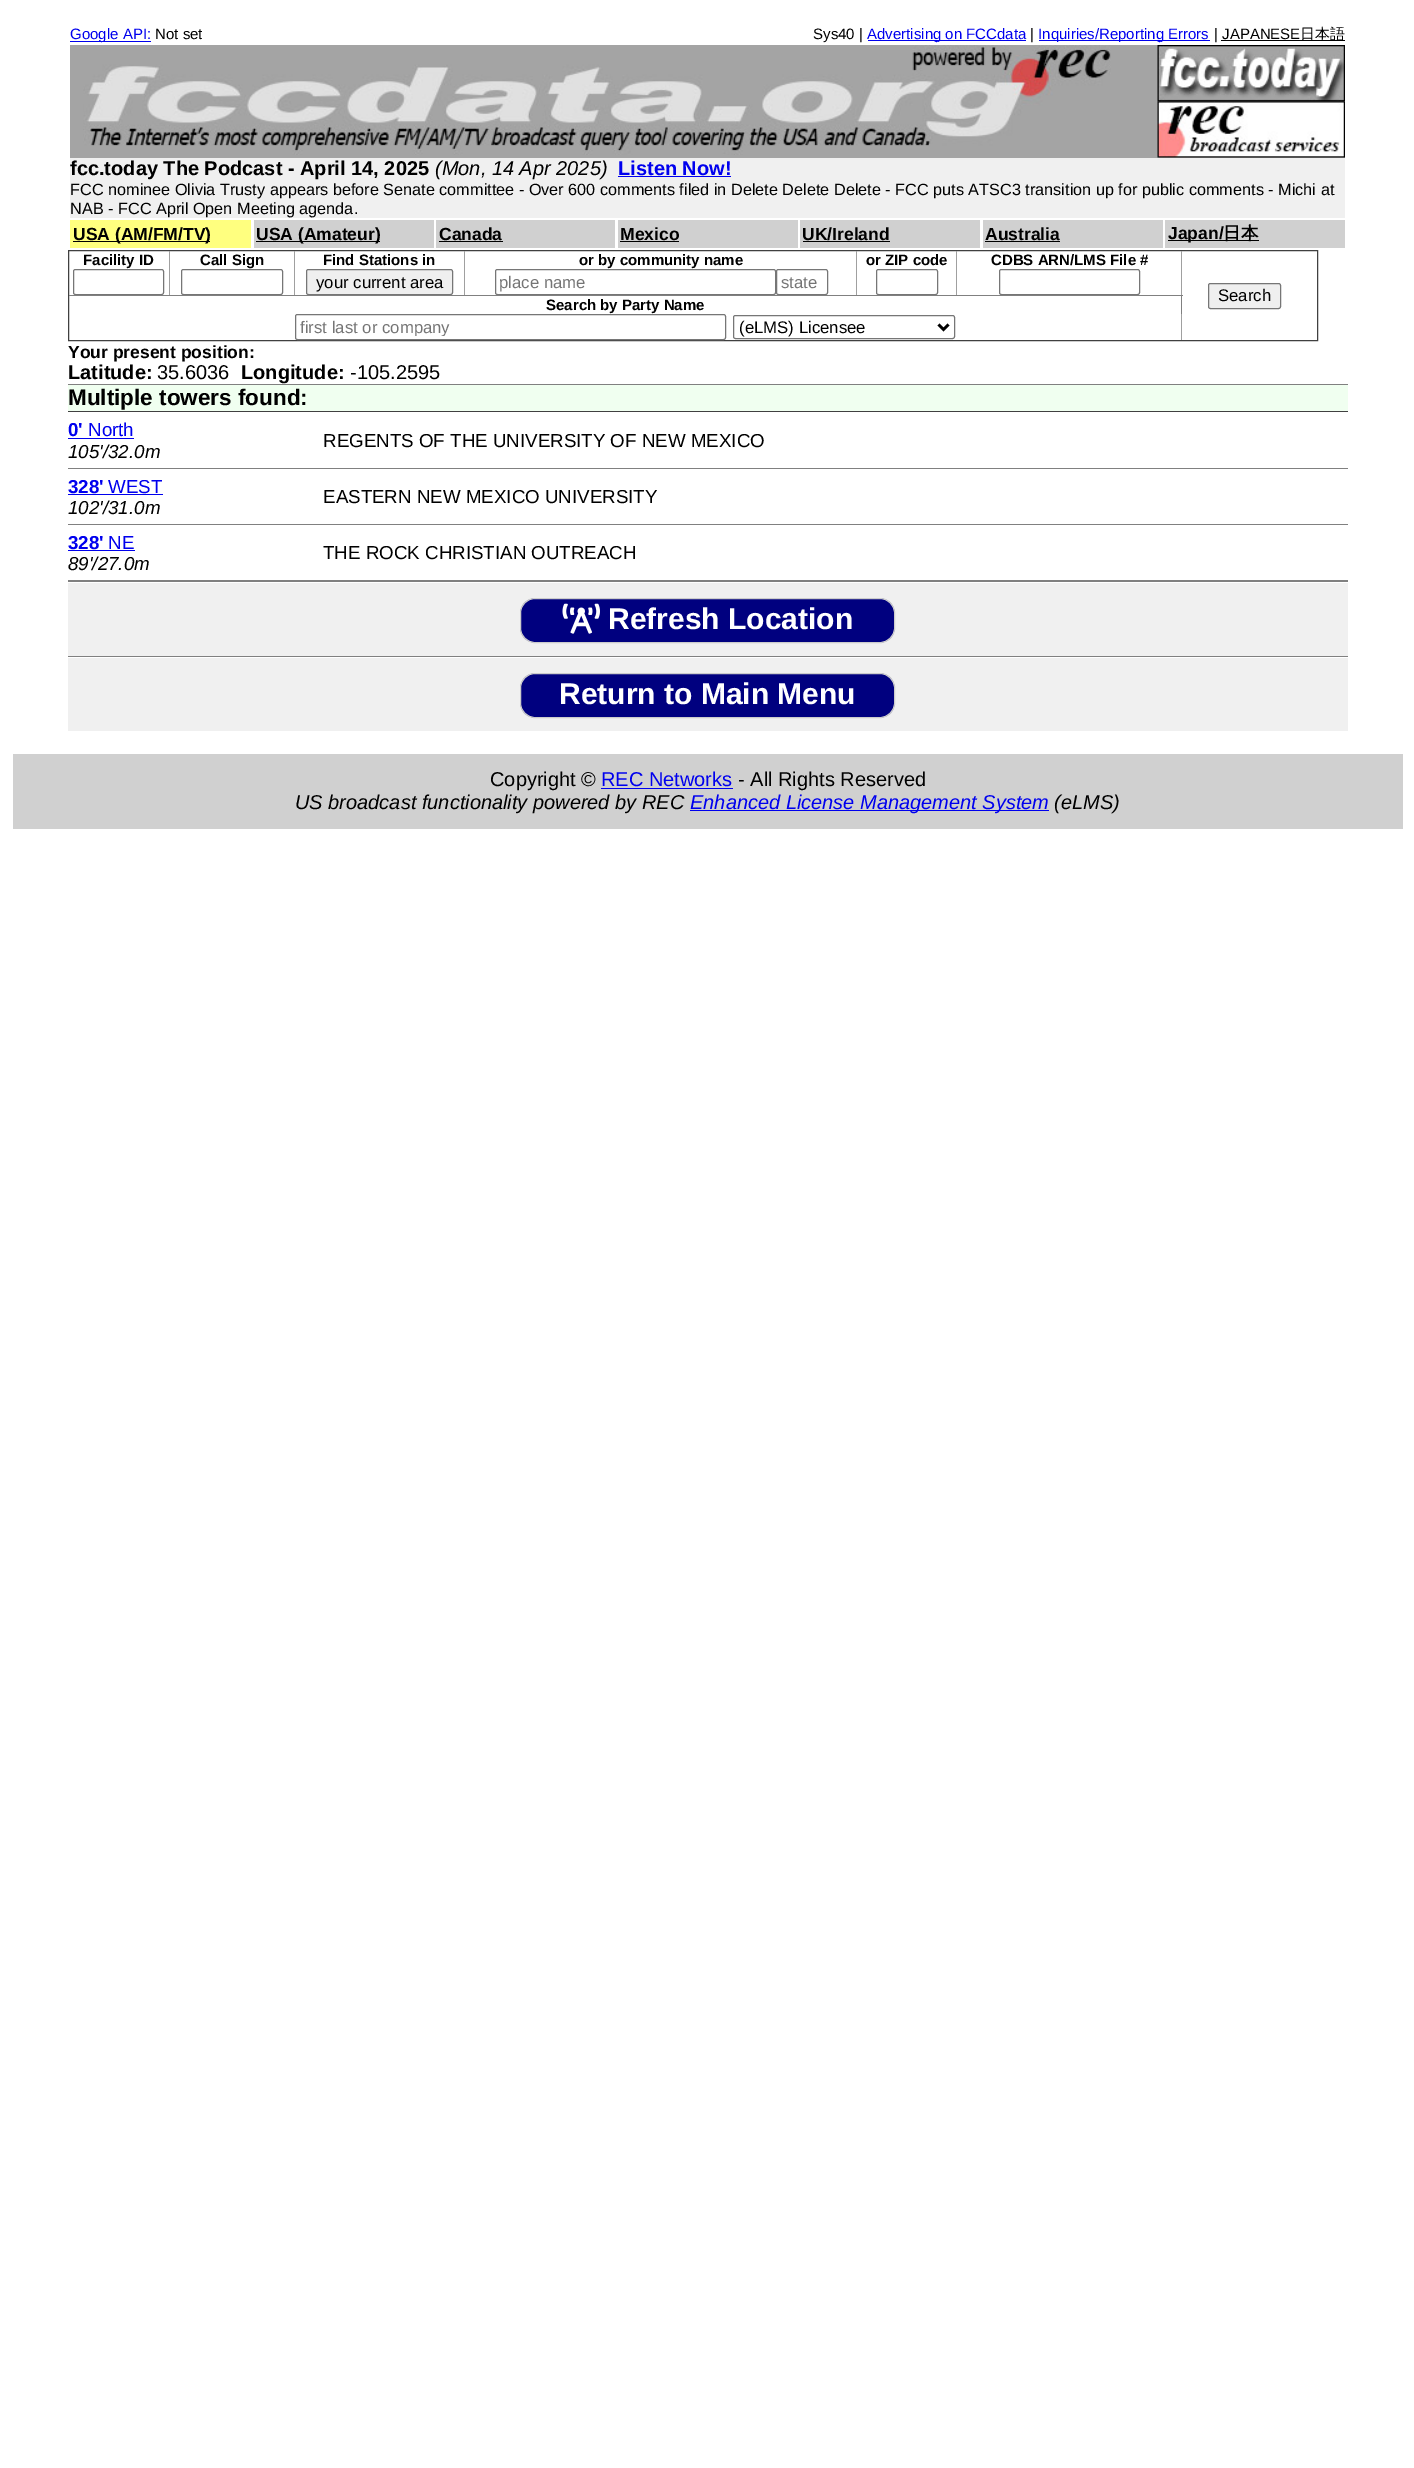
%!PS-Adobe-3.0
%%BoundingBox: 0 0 1414 2468
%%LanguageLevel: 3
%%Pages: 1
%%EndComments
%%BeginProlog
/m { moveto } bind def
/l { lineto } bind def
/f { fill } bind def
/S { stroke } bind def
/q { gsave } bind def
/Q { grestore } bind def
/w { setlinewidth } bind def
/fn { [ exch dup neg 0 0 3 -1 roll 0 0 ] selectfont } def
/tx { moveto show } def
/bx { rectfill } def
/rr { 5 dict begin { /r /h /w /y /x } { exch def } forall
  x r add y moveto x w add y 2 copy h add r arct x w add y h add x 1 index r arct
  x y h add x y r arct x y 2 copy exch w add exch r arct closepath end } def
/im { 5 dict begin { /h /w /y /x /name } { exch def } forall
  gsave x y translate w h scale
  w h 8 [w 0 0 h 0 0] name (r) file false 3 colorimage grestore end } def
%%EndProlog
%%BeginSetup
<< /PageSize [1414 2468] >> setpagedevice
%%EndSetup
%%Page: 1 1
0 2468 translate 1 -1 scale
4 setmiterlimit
1 setgray
0 0 1414 2468 bx
0 0 0.933 setrgbcolor
70 41 81 1 bx
/LiberationSans-Regular 15 fn
(Google API:) 70 39 tx
0 setgray
(Not set) 155 39 tx
(Sys40 |) 813 39 tx
0 0 0.933 setrgbcolor
868 40 158 1 bx
(Advertising on FCCdata) 867 39 tx
0 setgray
(|) 1030 39 tx
0 0 0.933 setrgbcolor
1039 40 171 1 bx
(Inquiries/Reporting Errors) 1038 39 tx
0 setgray
(| JAPANESE) 1214 39 tx
1221 40 124 1 bx
/WenQuanYiZenHei-Medium 15 fn
(日本語) 1300 39 tx
0.643 setgray
70 45 1275 113 bx
(image0.raw) 83 45 1028 110 im
(image1.raw) 1157 45 188 57 im
(image2.raw) 1157 101 188 57 im
0.941 setgray
70 158 1275 60 bx
/LiberationSans-Bold 20 fn
0 setgray
(fcc.today The Podcast - April 14, 2025) 70 175 tx
/LiberationSans-Italic 20 fn
(\(Mon, 14 Apr 2025\)) 435 175 tx
/LiberationSans-Bold 20 fn
0 0 0.933 setrgbcolor
(Listen Now!) 618 175 tx
618 176 113 1 bx
/LiberationSans-Regular 16.25 fn
0 setgray
(FCC nominee Olivia Trusty appears before Senate committee - Over 600 comments filed in Delete Delete Delete - FCC puts ATSC3 transition up for public comments - Michi at) 70 195 tx
(NAB - FCC April Open Meeting agenda.) 70 214 tx
1 1 0.498 setrgbcolor
70 220 181 28 bx
0 setgray
73 241 137 1 bx
/LiberationSans-Bold 17.5 fn
(USA \(AM/FM/TV\)) 73 240 tx
0.816 setgray
254 220 180 28 bx
0 setgray
256 241 124 1 bx
(USA \(Amateur\)) 256 240 tx
0.816 setgray
436 220 179 28 bx
0 setgray
(Canada) 439 240 tx
439 241 64 1 bx
0.816 setgray
618 220 180 28 bx
0 setgray
(Mexico) 620 240 tx
620 241 59 1 bx
0.816 setgray
800 220 180 28 bx
0 setgray
(UK/Ireland) 802 240 tx
803 241 87 1 bx
0.816 setgray
983 220 180 28 bx
0 setgray
(Australia) 985 240 tx
985 241 75 1 bx
0.816 setgray
1165 220 180 28 bx
0 setgray
1168 240 91 1 bx
(Japan/) 1168 239 tx
/WenQuanYiZenHei-Bold 17.5 fn
(日本) 1223 239 tx
0.251 setgray
68.5 250.5 1249 90 rectstroke
/LiberationSans-Bold 15 fn
0 setgray
(Facility ID) 83 265 tx
0.627 setgray
294 251 1 44 bx
169 251 1 44 bx
0 setgray
(Call Sign) 200 265 tx
0.627 setgray
464 251 1 44 bx
0 setgray
(Find Stations in) 323 265 tx
0.627 setgray
856 251 1 44 bx
0 setgray
(or by community name) 579 265 tx
0.627 setgray
956 251 1 44 bx
0 setgray
(or ZIP code) 866 265 tx
0.627 setgray
1181 251 1 44 bx
0 setgray
(CDBS ARN/LMS File #) 991 265 tx
0.937 setgray
1208.5 283.5 72 25 2 rr q f Q
0.463 setgray
S
/LiberationSans-Regular 16.75 fn
0 setgray
(Search) 1218 301 tx
0.463 setgray
73.5 269.5 90 25 2 rr S
181.5 269.5 101 25 2 rr S
0.937 setgray
306.5 269.5 146 25 2 rr q f Q
0.463 setgray
S
0 setgray
(your current area) 316 288 tx
0.463 setgray
495.5 269.5 280 25 2 rr S
0.459 setgray
(place name) 499 288 tx
0.463 setgray
776.5 269.5 51 25 2 rr S
0.459 setgray
(state) 781 288 tx
0.463 setgray
876.5 269.5 61 25 2 rr S
999.5 269.5 140 25 2 rr S
0.502 setgray
69 295 1114 1 bx
1181 295 1 19 bx
/LiberationSans-Bold 15 fn
0 setgray
(Search by Party Name) 546 310 tx
0.627 setgray
1181 314 1 26 bx
0.463 setgray
295.5 314.5 430 25 2 rr S
q
300 318 421 18 rectclip
/LiberationSans-Regular 16.75 fn
0.459 setgray
(first last or company) 300 333 tx
Q
733.5 315.5 221 23 2 rr S
0 setgray
2.5 w
938.5 324.5 m 943.5 329.5 l 948.5 324.5 l S
/LiberationSans-Regular 16.75 fn
(\(eLMS\) Licensee) 739 333 tx
/LiberationSans-Bold 17.5 fn
(Your present position:) 68 358 tx
0.502 setgray
68 384 1280 1 bx
/LiberationSans-Bold 20 fn
0 setgray
(Latitude:) 68 379 tx
/LiberationSans-Regular 20 fn
(35.6036) 157 379 tx
/LiberationSans-Bold 20 fn
(Longitude:) 241 379 tx
/LiberationSans-Regular 20 fn
(-105.2595) 350 379 tx
0.941 1 0.941 setrgbcolor
68 385 1280 26 bx
0.251 setgray
68 411 1280 1 bx
/LiberationSans-Bold 22.5 fn
0 setgray
(Multiple towers found:) 68 405 tx
0.502 setgray
68 468 1280 1 bx
/LiberationSans-Bold 18.75 fn
0 0 0.933 setrgbcolor
(0') 68 436 tx
68 438 66 1 bx
/LiberationSans-Regular 18.75 fn
(North) 88 436 tx
/LiberationSans-Italic 18.75 fn
0 setgray
(105'/32.0m) 68 458 tx
/LiberationSans-Regular 18.75 fn
(REGENTS OF THE UNIVERSITY OF NEW MEXICO) 323 447 tx
0.502 setgray
68 524 1280 1 bx
/LiberationSans-Bold 18.75 fn
0 0 0.933 setrgbcolor
(328') 68 493 tx
68 494 95 1 bx
/LiberationSans-Regular 18.75 fn
(WEST) 108 493 tx
/LiberationSans-Italic 18.75 fn
0 setgray
(102'/31.0m) 68 514 tx
/LiberationSans-Regular 18.75 fn
(EASTERN NEW MEXICO UNIVERSITY) 323 503 tx
0.502 setgray
68 580 1280 2 bx
/LiberationSans-Bold 18.75 fn
0 0 0.933 setrgbcolor
(328') 68 549 tx
68 550 67 1 bx
/LiberationSans-Regular 18.75 fn
(NE) 108 549 tx
/LiberationSans-Italic 18.75 fn
0 setgray
(89'/27.0m) 68 570 tx
/LiberationSans-Regular 18.75 fn
(THE ROCK CHRISTIAN OUTREACH) 323 559 tx
0.941 setgray
68 583 1280 73 bx
0 0 0.498 setrgbcolor
520.5 598.5 374 44 14.5 rr q f Q
0.8 setgray
1 w
S
(image3.raw) 562 603 38 31 im
/LiberationSans-Bold 30 fn
1 setgray
(Refresh Location) 608 629 tx
0.941 setgray
68 658 1280 73 bx
0.502 setgray
68 656 1280 1 bx
0 0 0.498 setrgbcolor
520.5 673.5 374 44 14.5 rr q f Q
0.8 setgray
S
1 setgray
(Return to Main Menu) 559 704 tx
0.816 setgray
13 754 1390 75 bx
/LiberationSans-Regular 20 fn
0 setgray
(Copyright ©) 490 786 tx
0 0 0.933 setrgbcolor
(REC Networks) 601 786 tx
601 788 132 1 bx
0 setgray
(- All Rights Reserved) 738 786 tx
/LiberationSans-Italic 20 fn
(US broadcast functionality powered by REC) 295 809 tx
0 0 0.933 setrgbcolor
690 810 359 1 bx
(Enhanced License Management System) 690 809 tx
0 setgray
(\(eLMS\)) 1054 809 tx
showpage
%%EOF
